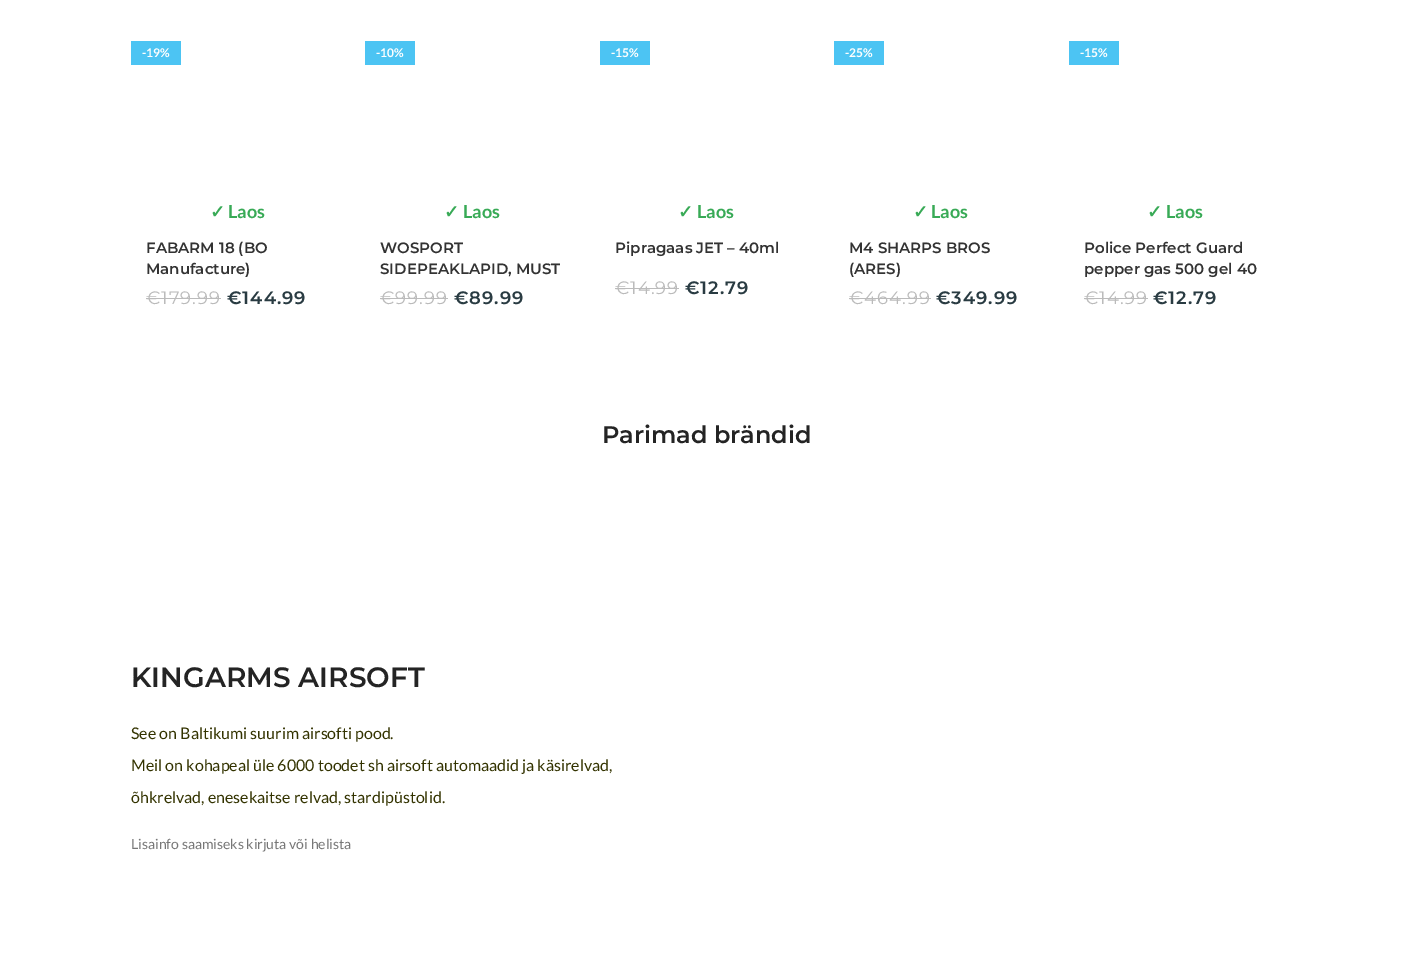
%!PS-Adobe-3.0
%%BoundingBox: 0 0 1414 960
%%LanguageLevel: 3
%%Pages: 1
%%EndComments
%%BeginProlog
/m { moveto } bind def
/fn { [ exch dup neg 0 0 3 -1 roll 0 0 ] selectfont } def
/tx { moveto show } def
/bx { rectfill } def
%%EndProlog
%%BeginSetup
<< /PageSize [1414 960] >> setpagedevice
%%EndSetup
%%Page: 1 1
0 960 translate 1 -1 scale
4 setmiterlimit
1 setgray
0 0 1414 960 bx
0.298 0.769 0.953 setrgbcolor
131 41 50 24 bx
/Lato-Bold 12 fn
1 setgray
(-19%) 142 57 tx
/DejaVuSans-Bold 18 fn
0.22 0.667 0.337 setrgbcolor
(✓) 210 218 tx
/Lato-Bold 18 fn
(Laos) 228 218 tx
/Montserrat-SemiBold 15 fn
0.2 setgray
(FABARM 18 \(BO) 146 253 tx
(Manufacture\)) 146 274 tx
/Montserrat-Regular 18 fn
0.733 setgray
146 304 m 1 0 (€179.99) ashow
146 298 75 1 bx
/Montserrat-SemiBold 18 fn
0.161 0.231 0.259 setrgbcolor
227 304 m 1 0 (€144.99) ashow
0.298 0.769 0.953 setrgbcolor
365 41 50 24 bx
/Lato-Bold 12 fn
1 setgray
(-10%) 376 57 tx
/DejaVuSans-Bold 18 fn
0.22 0.667 0.337 setrgbcolor
(✓) 444 218 tx
/Lato-Bold 18 fn
(Laos) 463 218 tx
/Montserrat-SemiBold 15 fn
0.2 setgray
(WOSPORT) 380 253 tx
(SIDEPEAKLAPID, MUST) 380 274 tx
/Montserrat-Regular 18 fn
0.733 setgray
380 304 m 1 0 (€99.99) ashow
380 298 68 1 bx
/Montserrat-SemiBold 18 fn
0.161 0.231 0.259 setrgbcolor
454 304 m 1 0 (€89.99) ashow
0.298 0.769 0.953 setrgbcolor
600 41 50 24 bx
/Lato-Bold 12 fn
1 setgray
(-15%) 611 57 tx
/DejaVuSans-Bold 18 fn
0.22 0.667 0.337 setrgbcolor
(✓) 678 218 tx
/Lato-Bold 18 fn
(Laos) 697 218 tx
/Montserrat-SemiBold 15 fn
0.2 setgray
(Pipragaas JET – 40ml) 615 253 tx
/Montserrat-Regular 18 fn
0.733 setgray
615 294 m 1 0 (€14.99) ashow
615 288 64 1 bx
/Montserrat-SemiBold 18 fn
0.161 0.231 0.259 setrgbcolor
685 294 m 1 0 (€12.79) ashow
0.298 0.769 0.953 setrgbcolor
834 41 50 24 bx
/Lato-Bold 12 fn
1 setgray
(-25%) 845 57 tx
/DejaVuSans-Bold 18 fn
0.22 0.667 0.337 setrgbcolor
(✓) 913 218 tx
/Lato-Bold 18 fn
(Laos) 931 218 tx
/Montserrat-SemiBold 15 fn
0.2 setgray
(M4 SHARPS BROS) 849 253 tx
(\(ARES\)) 849 274 tx
/Montserrat-Regular 18 fn
0.733 setgray
849 304 m 1 0 (€464.99) ashow
849 298 82 1 bx
/Montserrat-SemiBold 18 fn
0.161 0.231 0.259 setrgbcolor
936 304 m 1 0 (€349.99) ashow
0.298 0.769 0.953 setrgbcolor
1069 41 50 24 bx
/Lato-Bold 12 fn
1 setgray
(-15%) 1080 57 tx
/DejaVuSans-Bold 18 fn
0.22 0.667 0.337 setrgbcolor
(✓) 1147 218 tx
/Lato-Bold 18 fn
(Laos) 1166 218 tx
/Montserrat-SemiBold 15 fn
0.2 setgray
(Police Perfect Guard) 1084 253 tx
(pepper gas 500 gel 40) 1084 274 tx
/Montserrat-Regular 18 fn
0.733 setgray
1084 304 m 1 0 (€14.99) ashow
1084 298 64 1 bx
/Montserrat-SemiBold 18 fn
0.161 0.231 0.259 setrgbcolor
1153 304 m 1 0 (€12.79) ashow
/Montserrat-SemiBold 24 fn
0.141 setgray
(Parimad brändid) 602 443 tx
/Montserrat-SemiBold 28 fn
(KINGARMS AIRSOFT) 131 687 tx
/Lato-Regular 16 fn
0.2 0.2 0 setrgbcolor
(See on Baltikumi suurim airsofti pood.) 131 739 tx
(Meil on kohapeal üle 6000 toodet sh airsoft automaadid ja käsirelvad,) 131 771 tx
(õhkrelvad, enesekaitse relvad, stardipüstolid.) 131 803 tx
/Lato-Regular 14 fn
0.467 setgray
(Lisainfo saamiseks kirjuta või helista) 131 849 tx
showpage
%%EOF
